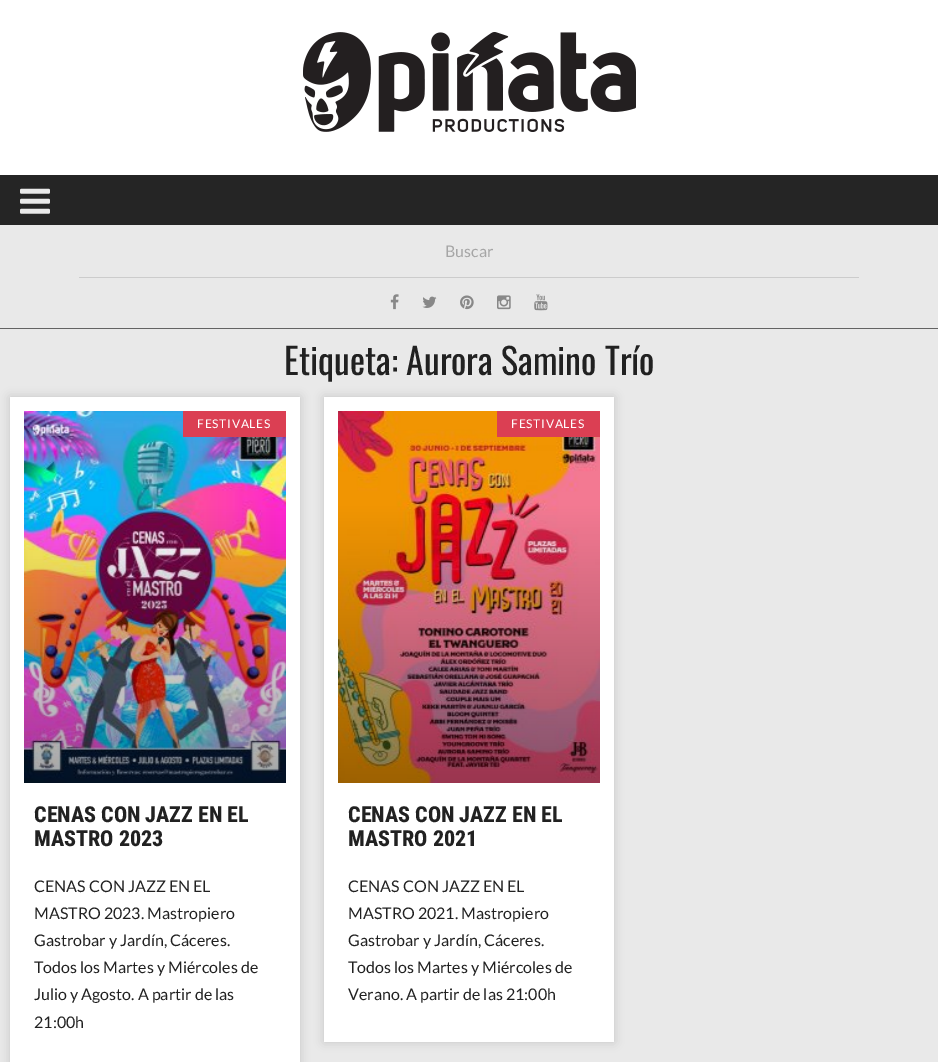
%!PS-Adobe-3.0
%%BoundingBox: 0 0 938 1062
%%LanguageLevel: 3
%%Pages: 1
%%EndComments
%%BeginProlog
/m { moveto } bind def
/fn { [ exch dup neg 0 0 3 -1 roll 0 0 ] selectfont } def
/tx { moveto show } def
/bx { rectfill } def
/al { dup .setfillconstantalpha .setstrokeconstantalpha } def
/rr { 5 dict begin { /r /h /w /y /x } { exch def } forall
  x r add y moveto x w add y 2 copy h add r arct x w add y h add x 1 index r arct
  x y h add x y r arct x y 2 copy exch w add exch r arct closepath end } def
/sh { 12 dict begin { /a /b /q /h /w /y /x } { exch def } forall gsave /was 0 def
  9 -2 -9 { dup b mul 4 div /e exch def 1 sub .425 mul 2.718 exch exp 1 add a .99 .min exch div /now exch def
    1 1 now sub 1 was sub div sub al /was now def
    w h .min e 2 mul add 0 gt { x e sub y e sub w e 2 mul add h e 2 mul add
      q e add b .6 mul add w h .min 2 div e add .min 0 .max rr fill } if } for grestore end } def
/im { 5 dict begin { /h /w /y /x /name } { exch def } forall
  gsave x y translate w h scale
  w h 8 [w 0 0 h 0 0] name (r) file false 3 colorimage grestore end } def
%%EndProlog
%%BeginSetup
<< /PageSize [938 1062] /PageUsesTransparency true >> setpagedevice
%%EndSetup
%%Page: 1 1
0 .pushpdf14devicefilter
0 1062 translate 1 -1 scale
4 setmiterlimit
1 setgray
0 0 938 1062 bx
(image0.raw) 303 32 333 100 im
0.145 setgray
0 175 938 50 bx
(image1.raw) 20 188 30 26 im
0.914 setgray
0 225 938 837 bx
0.8 setgray
79 277 780 1 bx
/Lato-Regular 16 fn
0.651 setgray
(Buscar) 445 257 tx
(image2.raw) 390 294 9 16 im
(image3.raw) 422 296 15 12 im
(image4.raw) 460 295 14 15 im
(image5.raw) 497 295 14 15 im
(image6.raw) 534 294 14 17 im
0.388 setgray
0 328 938 1 bx
/Oswald-Regular 36 fn
0.129 setgray
(Etiqueta: Aurora Samino Trío) 284 375 tx
0 setgray
10 397 290 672 0 5 0.15 sh
1 setgray
10 397 290 665 bx
(image7.raw) 24 411 262 372 im
0.859 0.247 0.325 setrgbcolor
183 411 103 26 bx
/Lato-Regular 12 fn
1 setgray
197 428 m 0.75 0 (FESTIVALES) ashow
/RobotoCondensed-ExtraBold 22 fn
0.129 setgray
(CENAS CON JAZZ EN EL) 34 822 tx
(MASTRO 2023) 34 846 tx
/Lato-Regular 16 fn
(CENAS CON JAZZ EN EL) 34 892 tx
(MASTRO 2023. Mastropiero) 34 919 tx
(Gastrobar y Jardín, Cáceres.) 34 946 tx
(Todos los Martes y Miércoles de) 34 973 tx
(Julio y Agosto. A partir de las) 34 1000 tx
(21:00h) 34 1028 tx
0 setgray
324 397 290 645 0 5 0.15 sh
1 setgray
324 397 290 645 bx
(image8.raw) 338 411 262 372 im
0.859 0.247 0.325 setrgbcolor
497 411 103 26 bx
/Lato-Regular 12 fn
1 setgray
511 428 m 0.75 0 (FESTIVALES) ashow
/RobotoCondensed-ExtraBold 22 fn
0.129 setgray
(CENAS CON JAZZ EN EL) 348 822 tx
(MASTRO 2021) 348 846 tx
/Lato-Regular 16 fn
(CENAS CON JAZZ EN EL) 348 892 tx
(MASTRO 2021. Mastropiero) 348 919 tx
(Gastrobar y Jardín, Cáceres.) 348 946 tx
(Todos los Martes y Miércoles de) 348 973 tx
(Verano. A partir de las 21:00h) 348 1000 tx
.poppdf14devicefilter showpage
%%EOF
